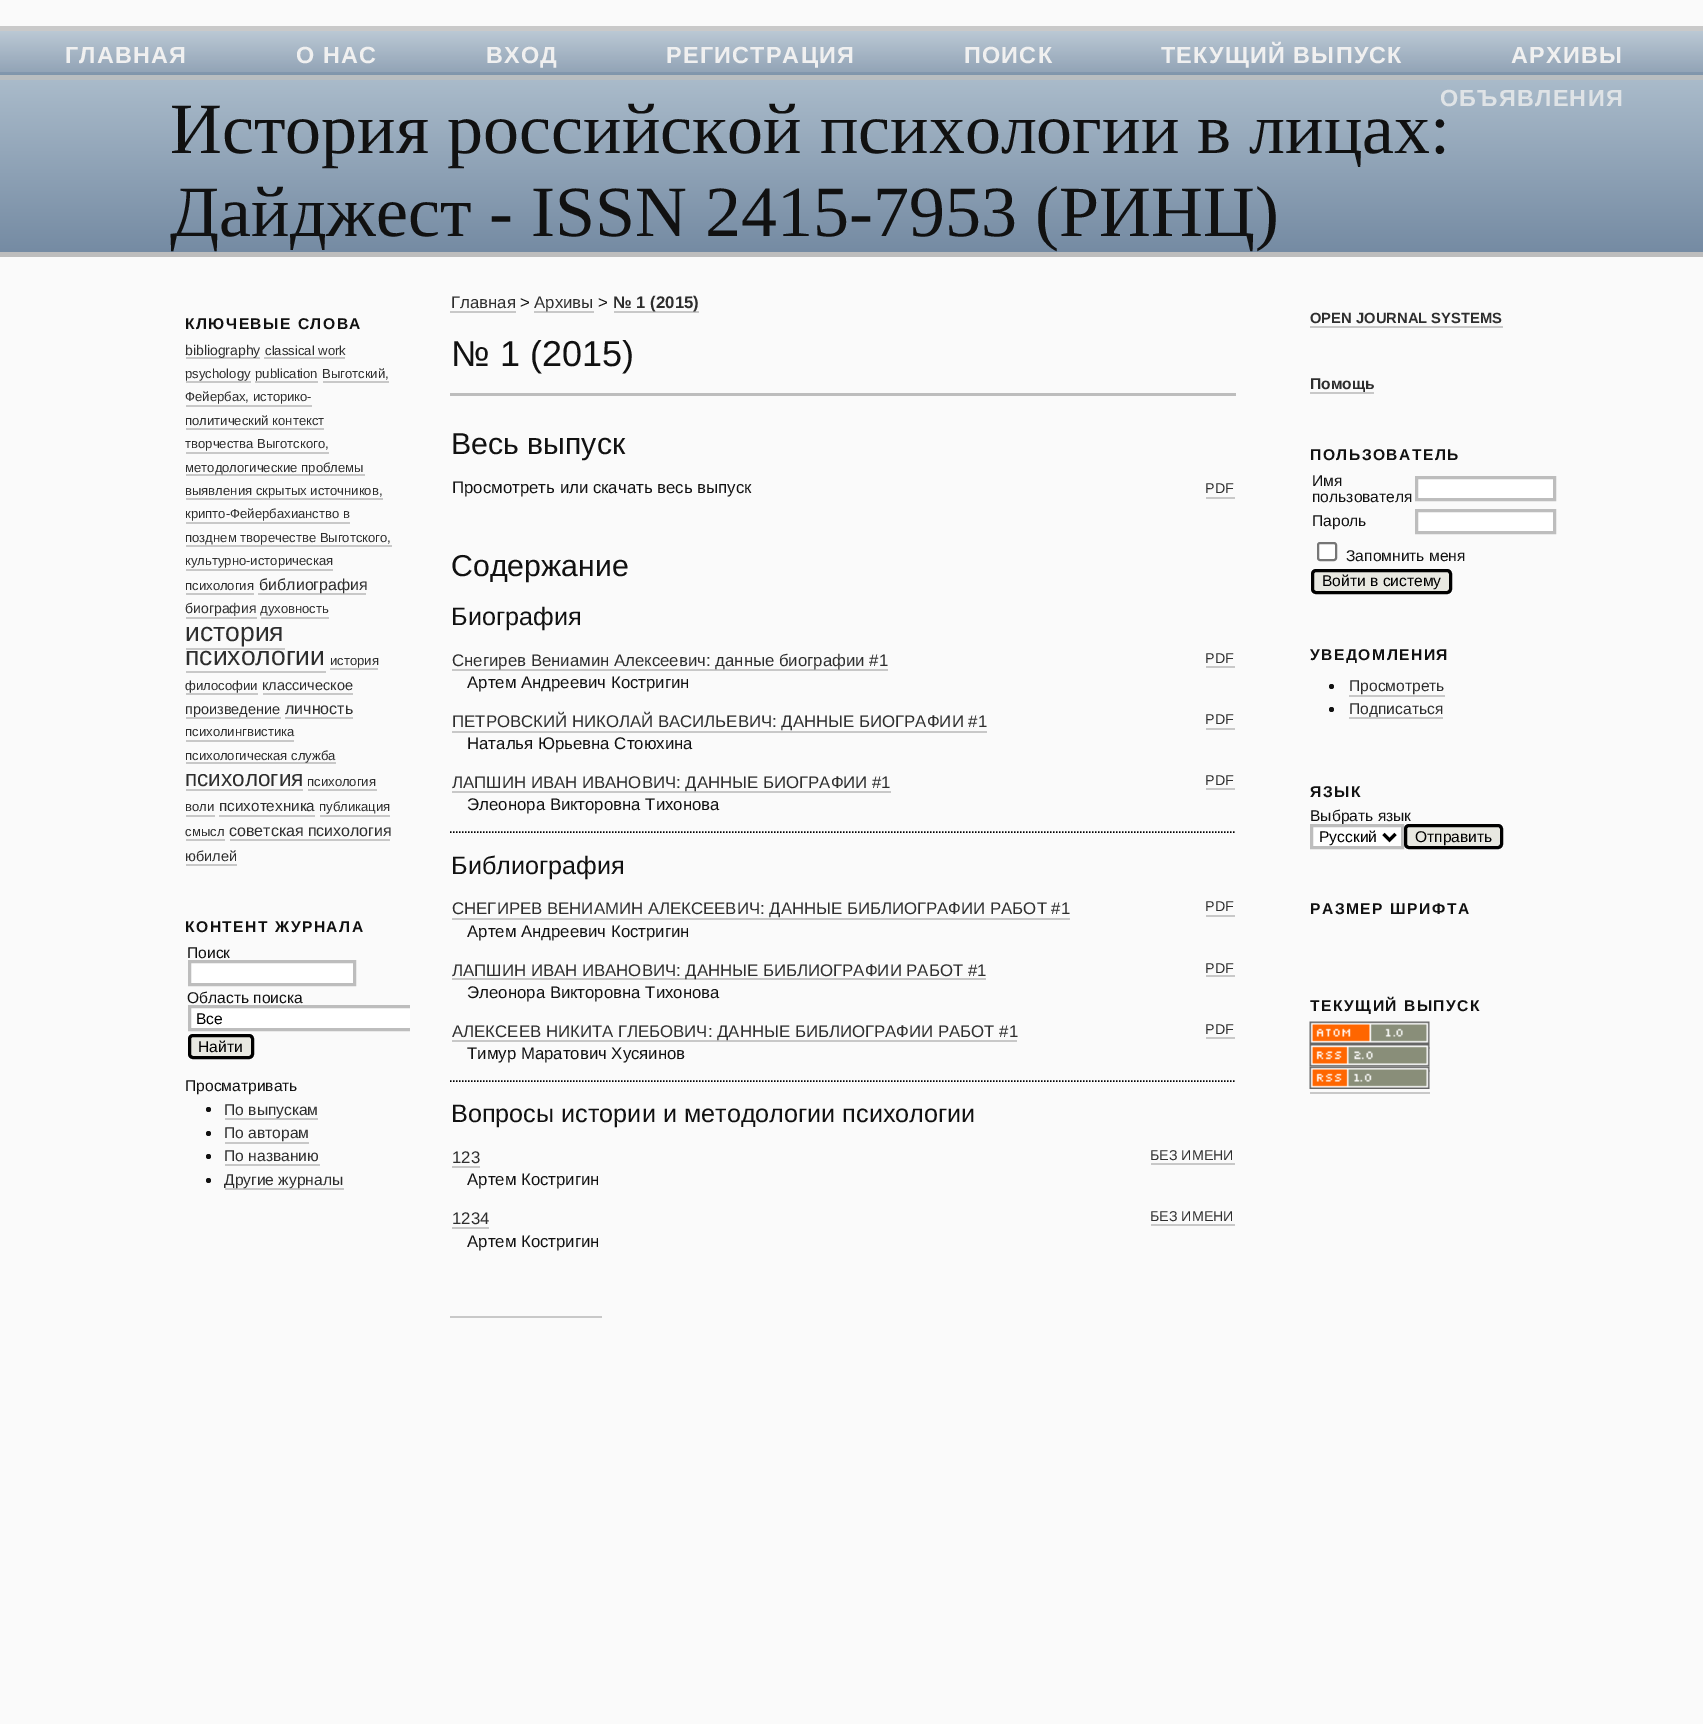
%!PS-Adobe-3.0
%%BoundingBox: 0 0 1703 1724
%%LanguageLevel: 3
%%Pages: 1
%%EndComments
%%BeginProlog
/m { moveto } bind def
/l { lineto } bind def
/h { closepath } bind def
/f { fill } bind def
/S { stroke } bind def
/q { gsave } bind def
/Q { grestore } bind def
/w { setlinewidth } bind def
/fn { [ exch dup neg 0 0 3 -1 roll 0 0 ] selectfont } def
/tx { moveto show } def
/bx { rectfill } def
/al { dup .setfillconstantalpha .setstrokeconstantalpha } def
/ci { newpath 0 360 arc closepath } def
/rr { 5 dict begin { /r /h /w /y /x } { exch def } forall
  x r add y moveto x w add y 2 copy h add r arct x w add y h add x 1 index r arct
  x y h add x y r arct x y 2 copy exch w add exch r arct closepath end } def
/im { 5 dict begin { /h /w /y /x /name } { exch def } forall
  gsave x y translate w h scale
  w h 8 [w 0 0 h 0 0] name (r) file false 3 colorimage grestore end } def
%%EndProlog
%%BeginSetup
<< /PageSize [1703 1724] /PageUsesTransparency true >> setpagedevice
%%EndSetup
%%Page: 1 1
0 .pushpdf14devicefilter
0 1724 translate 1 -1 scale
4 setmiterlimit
0.98 setgray
0 0 1703 1724 bx
q 0 72 m 1703 72 l 1703 252 l 0 252 l h clip newpath
<< /ShadingType 2 /ColorSpace /DeviceRGB /Coords [852 72 852 252] /Extend [true true] /Function << /FunctionType 2 /Domain [0 1] /C0 [0.675 0.741 0.8] /C1 [0.459 0.545 0.639] /N 1 >> >> shfill Q
0.8 al
q 0 31 m 1703 31 l 1703 75 l 0 75 l h clip newpath
<< /ShadingType 2 /ColorSpace /DeviceRGB /Coords [852 30 852 75] /Extend [true true] /Function << /FunctionType 2 /Domain [0 1] /C0 [0.675 0.741 0.8] /C1 [0.459 0.545 0.639] /N 1 >> >> shfill Q
1 al
0.788 setgray
0 26 1703 5 bx
0.725 0.741 0.753 setrgbcolor
0 75 1703 5 bx
/LiberationSans-Bold 23.4 fn
0.941 setgray
65 63 m 1.2 0 (ГЛАВНАЯ) ashow
296 63 m 1.2 0 (О НАС) ashow
486 63 m 1.2 0 (ВХОД) ashow
666 63 m 1.2 0 (РЕГИСТРАЦИЯ) ashow
964 63 m 1.2 0 (ПОИСК) ashow
1161 63 m 1.2 0 (ТЕКУЩИЙ ВЫПУСК) ashow
1511 63 m 1.2 0 (АРХИВЫ) ashow
0.875 0.89 0.902 setrgbcolor
1440 106 m 1.2 0 (ОБЪЯВЛЕНИЯ) ashow
/LiberationSans-Regular 16.8 fn
0.18 setgray
(Главная) 451 308 tx
0.784 setgray
450 311 66 2 bx
0.067 setgray
(>) 520 308 tx
0.784 setgray
534 311 60 2 bx
0.18 setgray
(Архивы) 534 308 tx
0.067 setgray
(>) 598 308 tx
0.784 setgray
614 311 85 2 bx
/LiberationSans-Bold 16.8 fn
0.18 setgray
(№ 1 \(2015\)) 613 308 tx
/LiberationSans-Regular 36 fn
0.067 setgray
(№ 1 \(2015\)) 451 366 tx
0.741 setgray
450 393 786 3 bx
/LiberationSans-Regular 30.25 fn
0.067 setgray
(Весь выпуск) 451 454 tx
/LiberationSans-Regular 16.8 fn
(Просмотреть или скачать весь выпуск) 452 493 tx
/LiberationSans-Regular 14.25 fn
0.18 setgray
(PDF) 1205 493 tx
0.784 setgray
1206 497 29 2 bx
/LiberationSans-Regular 30.25 fn
0.067 setgray
(Содержание) 451 576 tx
/LiberationSans-Regular 25.2 fn
(Биография) 451 625 tx
0.784 setgray
452 669 436 2 bx
/LiberationSans-Regular 16.8 fn
0.18 setgray
(Снегирев Вениамин Алексеевич: данные биографии #1) 452 666 tx
0.067 setgray
(Артем Андреевич Костригин) 467 688 tx
/LiberationSans-Regular 14.25 fn
0.18 setgray
(PDF) 1205 663 tx
0.784 setgray
1206 666 29 2 bx
/LiberationSans-Regular 16.8 fn
0.18 setgray
(ПЕТРОВСКИЙ НИКОЛАЙ ВАСИЛЬЕВИЧ: ДАННЫЕ БИОГРАФИИ #1) 452 727 tx
0.784 setgray
452 731 535 2 bx
0.067 setgray
(Наталья Юрьевна Стоюхина) 467 749 tx
/LiberationSans-Regular 14.25 fn
0.18 setgray
(PDF) 1205 724 tx
0.784 setgray
1206 728 29 2 bx
452 791 439 2 bx
/LiberationSans-Regular 16.8 fn
0.18 setgray
(ЛАПШИН ИВАН ИВАНОВИЧ: ДАННЫЕ БИОГРАФИИ #1) 452 788 tx
0.067 setgray
(Элеонора Викторовна Тихонова) 467 810 tx
/LiberationSans-Regular 14.25 fn
0.18 setgray
(PDF) 1205 785 tx
0.784 setgray
1206 788 29 2 bx
0 setgray
1.5 w
[1.5 1.5] 0 setdash
450 832 m 1236 832 l S
/LiberationSans-Regular 25.2 fn
0.067 setgray
(Библиография) 451 874 tx
/LiberationSans-Regular 16.8 fn
0.18 setgray
(СНЕГИРЕВ ВЕНИАМИН АЛЕКСЕЕВИЧ: ДАННЫЕ БИБЛИОГРАФИИ РАБОТ #1) 452 914 tx
0.784 setgray
452 918 618 2 bx
0.067 setgray
(Артем Андреевич Костригин) 467 937 tx
/LiberationSans-Regular 14.25 fn
0.18 setgray
(PDF) 1205 911 tx
0.784 setgray
1206 915 29 2 bx
452 978 534 2 bx
/LiberationSans-Regular 16.8 fn
0.18 setgray
(ЛАПШИН ИВАН ИВАНОВИЧ: ДАННЫЕ БИБЛИОГРАФИИ РАБОТ #1) 452 976 tx
0.067 setgray
(Элеонора Викторовна Тихонова) 467 998 tx
/LiberationSans-Regular 14.25 fn
0.18 setgray
(PDF) 1205 973 tx
0.784 setgray
1206 975 29 2 bx
452 1040 565 2 bx
/LiberationSans-Regular 16.8 fn
0.18 setgray
(АЛЕКСЕЕВ НИКИТА ГЛЕБОВИЧ: ДАННЫЕ БИБЛИОГРАФИИ РАБОТ #1) 452 1037 tx
0.067 setgray
(Тимур Маратович Хусяинов) 467 1059 tx
/LiberationSans-Regular 14.25 fn
0.18 setgray
(PDF) 1205 1034 tx
0.784 setgray
1206 1037 29 2 bx
0 setgray
450 1081 m 1236 1081 l S
/LiberationSans-Regular 25.2 fn
0.067 setgray
(Вопросы истории и методологии психологии) 451 1122 tx
/LiberationSans-Regular 16.8 fn
0.18 setgray
(123) 452 1163 tx
0.784 setgray
452 1166 28 2 bx
0.067 setgray
(Артем Костригин) 467 1185 tx
/LiberationSans-Regular 14.25 fn
0.18 setgray
(БЕЗ ИМЕНИ) 1150 1160 tx
0.784 setgray
1151 1163 84 2 bx
/LiberationSans-Regular 16.8 fn
0.18 setgray
(1234) 452 1224 tx
0.784 setgray
452 1227 37 2 bx
0.067 setgray
(Артем Костригин) 467 1247 tx
/LiberationSans-Regular 14.25 fn
0.18 setgray
(БЕЗ ИМЕНИ) 1150 1221 tx
0.784 setgray
1151 1224 84 2 bx
450 1316 152 2 bx
/LiberationSans-Bold 15.6 fn
0.067 setgray
185 329 m 1.5 0 (КЛЮЧЕВЫЕ СЛОВА) ashow
0.784 setgray
186 357 74 2 bx
/LiberationSans-Regular 14 fn
0.18 setgray
(bibliography) 185 355 tx
/LiberationSans-Regular 13.1 fn
(classical work) 265 355 tx
0.784 setgray
264 357 81 2 bx
0.18 setgray
(psychology) 185 378 tx
0.784 setgray
186 381 65 2 bx
0.18 setgray
(publication) 255 378 tx
0.784 setgray
255 381 63 2 bx
0.18 setgray
(Выготский,) 322 378 tx
0.784 setgray
323 381 66 2 bx
0.18 setgray
(Фейербах, историко-) 185 401 tx
0.784 setgray
186 405 126 2 bx
0.18 setgray
(политический контекст) 185 425 tx
0.784 setgray
186 428 138 2 bx
0.18 setgray
(творчества Выготского,) 185 448 tx
0.784 setgray
186 452 143 2 bx
186 474 179 2 bx
0.18 setgray
(методологические проблемы) 185 472 tx
(выявления скрытых источников,) 185 495 tx
0.784 setgray
186 498 197 2 bx
0.18 setgray
(крипто-Фейербахианство в) 185 518 tx
0.784 setgray
186 522 164 2 bx
0.18 setgray
(позднем творечестве Выготского,) 185 542 tx
0.784 setgray
186 545 206 2 bx
0.18 setgray
(культурно-историческая) 185 565 tx
0.784 setgray
186 569 147 2 bx
0.18 setgray
(психология) 185 590 tx
0.784 setgray
186 593 68 2 bx
258 593 108 2 bx
/LiberationSans-Regular 16 fn
0.18 setgray
(библиография) 259 590 tx
/LiberationSans-Regular 14 fn
(биография) 185 613 tx
0.784 setgray
186 617 71 2 bx
/LiberationSans-Regular 13.1 fn
0.18 setgray
(духовность) 260 613 tx
0.784 setgray
261 617 68 2 bx
/LiberationSans-Regular 26.5 fn
0.18 setgray
(история) 185 641 tx
(психологии) 185 665 tx
0.784 setgray
186 648 99 2 bx
186 671 140 2 bx
/LiberationSans-Regular 13.1 fn
0.18 setgray
(история) 330 665 tx
0.784 setgray
330 668 48 2 bx
0.18 setgray
(философии) 185 690 tx
0.784 setgray
186 693 72 2 bx
/LiberationSans-Regular 14.5 fn
0.18 setgray
(классическое) 262 690 tx
0.784 setgray
263 693 90 2 bx
0.18 setgray
(произведение) 185 714 tx
0.784 setgray
186 717 95 2 bx
/LiberationSans-Regular 16 fn
0.18 setgray
(личность) 285 714 tx
0.784 setgray
285 717 68 2 bx
/LiberationSans-Regular 13.1 fn
0.18 setgray
(психолингвистика) 185 736 tx
0.784 setgray
186 740 108 2 bx
186 762 150 2 bx
0.18 setgray
(психологическая служба) 185 760 tx
/LiberationSans-Regular 22.5 fn
(психология) 185 786 tx
0.784 setgray
186 789 117 2 bx
/LiberationSans-Regular 13.1 fn
0.18 setgray
(психология) 307 786 tx
0.784 setgray
308 789 69 2 bx
0.18 setgray
(воли) 185 811 tx
0.784 setgray
186 815 29 2 bx
/LiberationSans-Regular 15.25 fn
0.18 setgray
(психотехника) 219 811 tx
0.784 setgray
219 815 96 2 bx
/LiberationSans-Regular 13.1 fn
0.18 setgray
(публикация) 319 811 tx
0.784 setgray
320 815 70 2 bx
0.18 setgray
(смысл) 185 836 tx
0.784 setgray
186 839 39 2 bx
/LiberationSans-Regular 16 fn
0.18 setgray
(советская психология) 229 836 tx
0.784 setgray
230 839 160 2 bx
/LiberationSans-Regular 14.5 fn
0.18 setgray
(юбилей) 185 861 tx
0.784 setgray
186 864 51 2 bx
/LiberationSans-Bold 15.6 fn
0.067 setgray
185 932 m 1.5 0 (КОНТЕНТ ЖУРНАЛА) ashow
/LiberationSans-Regular 15.6 fn
(Поиск) 187 958 tx
1 setgray
189.5 961.5 m 354.5 961.5 l 354.5 984.5 l 189.5 984.5 l h q f Q
0.741 setgray
3 w
[] 0 setdash
S
0.067 setgray
(Область поиска) 187 1003 tx
1 setgray
191 1008 219 20 bx
q
171 243 239 1011 rectclip
0.741 setgray
189.5 1006.5 253 23 rectstroke
Q
0 setgray
(Все) 196 1024 tx
0.91 0.91 0.882 setrgbcolor
189.5 1035.5 63 22 3.5 rr q f Q
0 setgray
S
(Найти) 198 1052 tx
0.067 setgray
(Просматривать) 185 1091 tx
208.5 1109.5 2.5 ci f
0.784 setgray
225 1118 93 2 bx
0.18 setgray
(По выпускам) 224 1115 tx
0.067 setgray
208.5 1133.5 2.5 ci f
0.18 setgray
(По авторам) 224 1138 tx
0.784 setgray
225 1142 84 2 bx
0.067 setgray
208.5 1156.5 2.5 ci f
0.18 setgray
(По названию) 224 1161 tx
0.784 setgray
225 1164 95 2 bx
0.067 setgray
208.5 1180.5 2.5 ci f
0.784 setgray
225 1188 119 2 bx
0.18 setgray
(Другие журналы) 224 1185 tx
/LiberationSans-Bold 14.75 fn
(OPEN JOURNAL SYSTEMS) 1310 323 tx
0.784 setgray
1310 326 193 2 bx
1310 392 64 2 bx
/LiberationSans-Bold 15.6 fn
0.18 setgray
(Помощь) 1310 389 tx
0.067 setgray
1310 460 m 1.5 0 (ПОЛЬЗОВАТЕЛЬ) ashow
/LiberationSans-Regular 15.6 fn
(Имя) 1312 486 tx
(пользователя) 1312 502 tx
1 setgray
1416.5 477.5 m 1554.5 477.5 l 1554.5 499.5 l 1416.5 499.5 l h q f Q
0.741 setgray
S
0.067 setgray
(Пароль) 1312 526 tx
1 setgray
1416.5 510.5 m 1554.5 510.5 l 1554.5 532.5 l 1416.5 532.5 l h q f Q
0.741 setgray
S
1 setgray
1318 543 18 17 2 rr q f Q
0.463 setgray
2 w
S
0.067 setgray
(Запомнить меня) 1346 561 tx
0.91 0.91 0.882 setrgbcolor
1312.5 570.5 138 22 3.5 rr q f Q
0 setgray
3 w
S
(Войти в систему) 1322 586 tx
/LiberationSans-Bold 15.6 fn
0.067 setgray
1310 660 m 1.5 0 (УВЕДОМЛЕНИЯ) ashow
1331.5 686.5 2.5 ci f
/LiberationSans-Regular 15.6 fn
0.18 setgray
(Просмотреть) 1349 691 tx
0.784 setgray
1349 695 96 2 bx
0.067 setgray
1331.5 709.5 2.5 ci f
0.784 setgray
1349 717 94 2 bx
0.18 setgray
(Подписаться) 1349 714 tx
/LiberationSans-Bold 15.6 fn
0.067 setgray
1310 797 m 1.5 0 (ЯЗЫК) ashow
/LiberationSans-Regular 15.6 fn
(Выбрать язык) 1310 821 tx
1 setgray
1311.5 825.5 m 1402.5 825.5 l 1402.5 847.5 l 1311.5 847.5 l h q f Q
0.741 setgray
S
0 setgray
1383.5 834 m 1389.5 840 l 1395.5 834 l S
(Русский) 1319 842 tx
0.91 0.91 0.882 setrgbcolor
1405.5 825.5 96 22 3.5 rr q f Q
0 setgray
S
(Отправить) 1415 842 tx
/LiberationSans-Bold 15.6 fn
0.067 setgray
1310 914 m 1.5 0 (РАЗМЕР ШРИФТА) ashow
1310 1011 m 1.5 0 (ТЕКУЩИЙ ВЫПУСК) ashow
(image0.raw) 1309 1021 121 23 im
0.784 setgray
1429 1047 1 2 bx
(image1.raw) 1309 1044 121 23 im
1429 1070 1 2 bx
(image2.raw) 1309 1066 121 23 im
1310 1092 120 2 bx
0.741 setgray
0 252 1703 5 bx
/LiberationSerif-Regular 72 fn
0.067 setgray
(История российской психологии в лицах:) 170 153 tx
(Дайджест - ISSN 2415-7953 \(РИНЦ\)) 170 236 tx
.poppdf14devicefilter showpage
%%EOF
